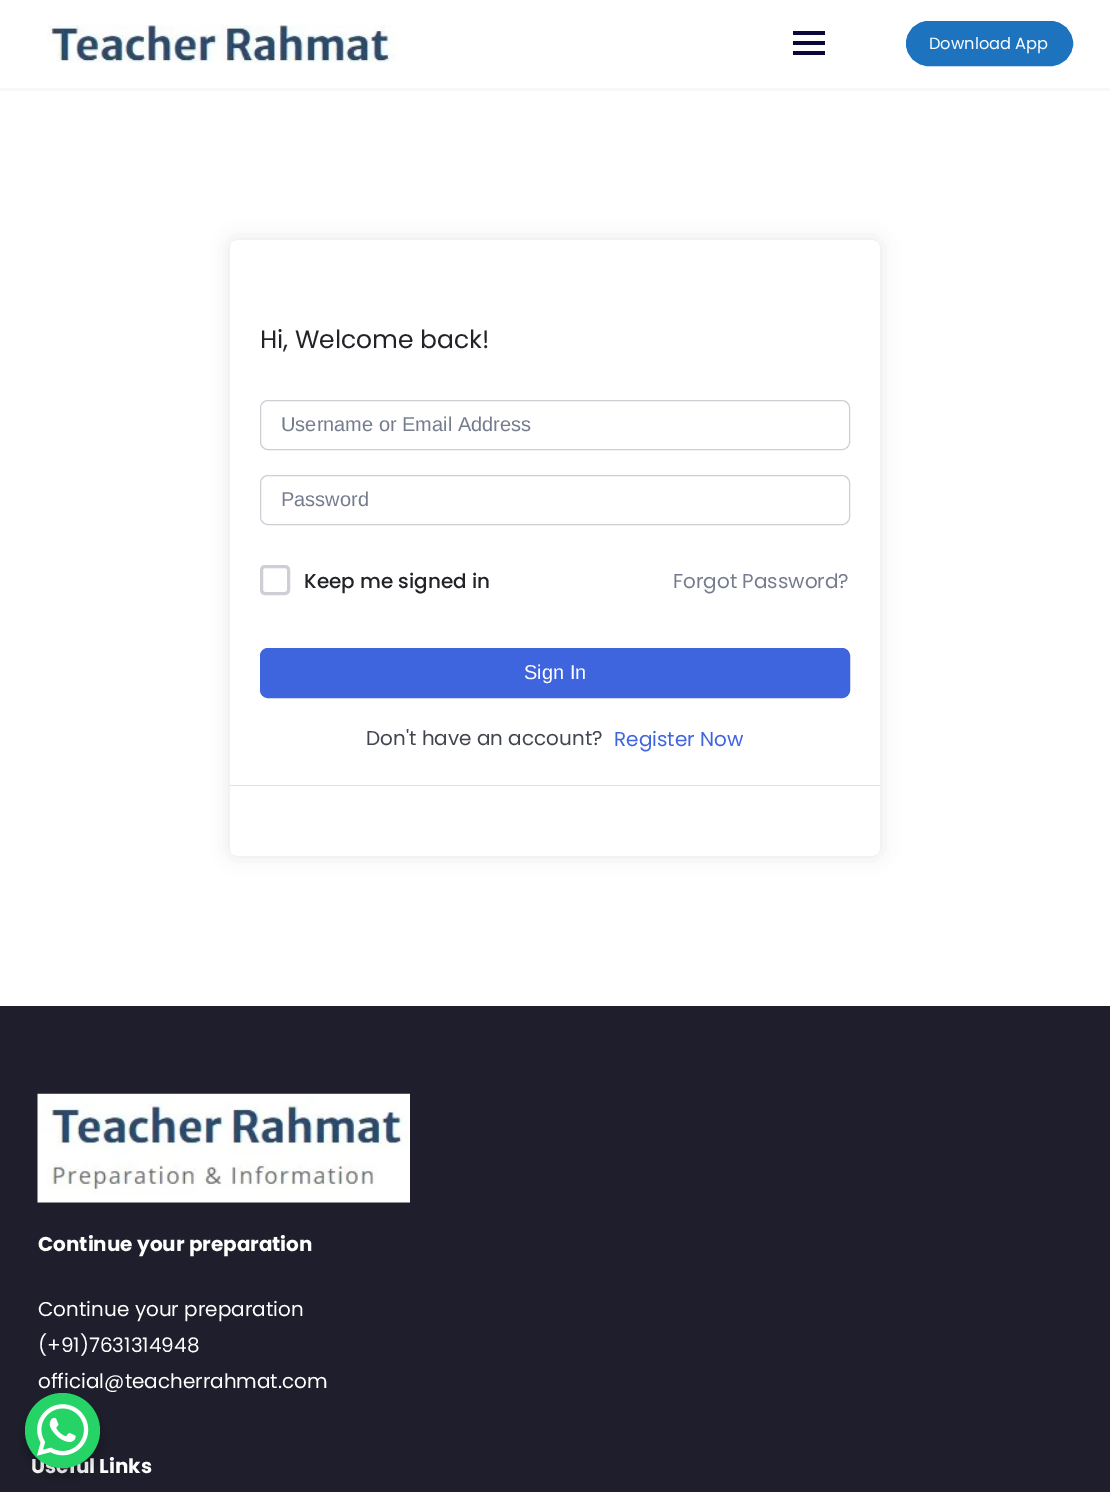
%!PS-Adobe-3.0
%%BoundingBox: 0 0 1110 1492
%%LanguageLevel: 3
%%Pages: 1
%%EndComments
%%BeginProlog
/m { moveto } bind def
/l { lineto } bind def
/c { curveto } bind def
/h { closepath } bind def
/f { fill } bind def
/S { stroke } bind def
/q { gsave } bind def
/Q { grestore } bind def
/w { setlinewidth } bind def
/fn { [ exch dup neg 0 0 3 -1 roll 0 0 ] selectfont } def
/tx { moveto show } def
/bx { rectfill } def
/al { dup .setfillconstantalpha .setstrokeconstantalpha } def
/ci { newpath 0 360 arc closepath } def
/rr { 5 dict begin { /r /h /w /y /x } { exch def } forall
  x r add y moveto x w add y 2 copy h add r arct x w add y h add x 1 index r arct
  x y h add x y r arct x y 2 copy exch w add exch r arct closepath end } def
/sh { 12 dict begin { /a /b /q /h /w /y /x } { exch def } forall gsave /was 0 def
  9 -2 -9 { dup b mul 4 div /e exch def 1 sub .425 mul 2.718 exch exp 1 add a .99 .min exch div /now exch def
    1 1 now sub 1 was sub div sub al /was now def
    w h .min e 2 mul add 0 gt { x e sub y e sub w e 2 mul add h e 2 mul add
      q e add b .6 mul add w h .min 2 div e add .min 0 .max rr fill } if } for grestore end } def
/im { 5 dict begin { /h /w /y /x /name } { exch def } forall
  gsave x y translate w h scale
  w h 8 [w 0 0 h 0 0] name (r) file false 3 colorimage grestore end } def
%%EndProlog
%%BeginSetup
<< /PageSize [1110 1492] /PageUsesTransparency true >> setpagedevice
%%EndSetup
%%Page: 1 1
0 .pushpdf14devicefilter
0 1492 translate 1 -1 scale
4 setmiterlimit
1 setgray
0 0 1110 1492 bx
0.973 setgray
0 88 1110 3 bx
(image0.raw) 47 25 350 38 im
0.039 0.031 0.231 setrgbcolor
793 41 32 4 bx
793 31 32 4 bx
793 51 32 4 bx
0.118 0.451 0.745 setrgbcolor
906.5 21.5 166 44 22 rr q f Q
S
/Poppins-Regular 16.25 fn
1 setgray
(Download App) 929 49 tx
q
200 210 m 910 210 l 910 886 l 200 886 l h 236 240 m 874 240 l 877.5 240 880 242.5 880 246 c 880 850 l 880 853.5 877.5 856 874 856 c 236 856 l 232.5 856 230 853.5 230 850 c 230 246 l 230 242.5 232.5 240 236 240 c h eoclip newpath
0 setgray
230 240 650 616 6 9.5 0.1 sh
Q
/Poppins-Regular 25 fn
0.129 0.137 0.153 setrgbcolor
(Hi, Welcome back!) 260 348 tx
0.804 0.812 0.835 setrgbcolor
260.5 400.5 589 49 7.5 rr S
/LiberationSans-Regular 20 fn
0.459 0.486 0.557 setrgbcolor
(Username or Email Address) 281 431 tx
0.804 0.812 0.835 setrgbcolor
260.5 475.5 589 49 7.5 rr S
0.459 0.486 0.557 setrgbcolor
(Password) 281 506 tx
0.804 0.812 0.835 setrgbcolor
3 w
261.5 566.5 27 27 3.5 rr S
/Poppins-Medium 20 fn
0.129 0.137 0.153 setrgbcolor
(Keep me signed in) 304 588 tx
/Poppins-Regular 20 fn
0.459 0.486 0.557 setrgbcolor
(Forgot Password?) 673 588 tx
0.243 0.392 0.871 setrgbcolor
260.5 648.5 589 49 7.5 rr q f Q
1 w
S
/LiberationSans-Regular 20 fn
1 setgray
(Sign In) 524 679 tx
/Poppins-Regular 20 fn
0.255 0.271 0.31 setrgbcolor
(Don't have an account?) 366 745 tx
0.243 0.392 0.871 setrgbcolor
(Register Now) 614 746 tx
0.878 0.886 0.918 setrgbcolor
230 785 650 1 bx
0.118 0.118 0.173 setrgbcolor
0 1006 1110 486 bx
(image1.raw) 37 1093 373 110 im
/Poppins-Bold 20 fn
1 setgray
(Continue your preparation) 38 1251 tx
/Poppins-Regular 20 fn
(Continue your preparation) 38 1316 tx
(\(+91\)7631314948) 38 1352 tx
(official@teacherrahmat.com) 38 1388 tx
/Poppins-Bold 20 fn
(Useful Links) 31 1473 tx
0 setgray
23 1398 80 80 40 5 0.15 sh
0.145 0.827 0.4 setrgbcolor
62.5 1430.5 37.5 ci f
(image2.raw) 37 1404 52 52 im
.poppdf14devicefilter showpage
%%EOF
